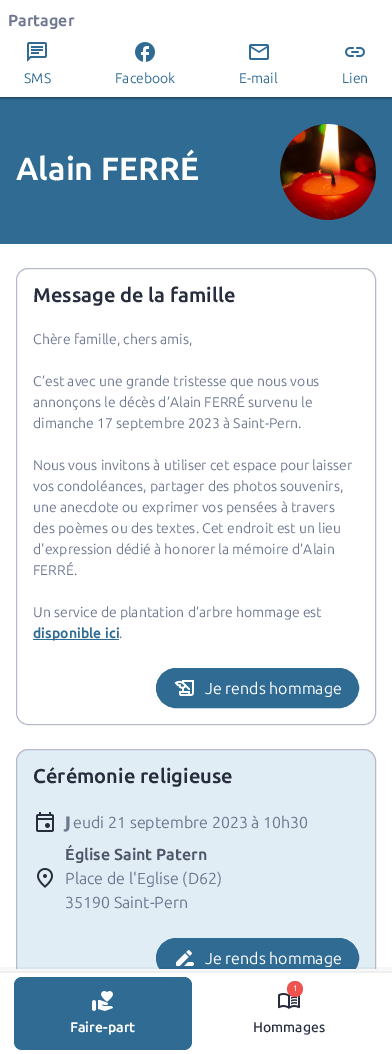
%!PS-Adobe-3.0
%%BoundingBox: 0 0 392 1054
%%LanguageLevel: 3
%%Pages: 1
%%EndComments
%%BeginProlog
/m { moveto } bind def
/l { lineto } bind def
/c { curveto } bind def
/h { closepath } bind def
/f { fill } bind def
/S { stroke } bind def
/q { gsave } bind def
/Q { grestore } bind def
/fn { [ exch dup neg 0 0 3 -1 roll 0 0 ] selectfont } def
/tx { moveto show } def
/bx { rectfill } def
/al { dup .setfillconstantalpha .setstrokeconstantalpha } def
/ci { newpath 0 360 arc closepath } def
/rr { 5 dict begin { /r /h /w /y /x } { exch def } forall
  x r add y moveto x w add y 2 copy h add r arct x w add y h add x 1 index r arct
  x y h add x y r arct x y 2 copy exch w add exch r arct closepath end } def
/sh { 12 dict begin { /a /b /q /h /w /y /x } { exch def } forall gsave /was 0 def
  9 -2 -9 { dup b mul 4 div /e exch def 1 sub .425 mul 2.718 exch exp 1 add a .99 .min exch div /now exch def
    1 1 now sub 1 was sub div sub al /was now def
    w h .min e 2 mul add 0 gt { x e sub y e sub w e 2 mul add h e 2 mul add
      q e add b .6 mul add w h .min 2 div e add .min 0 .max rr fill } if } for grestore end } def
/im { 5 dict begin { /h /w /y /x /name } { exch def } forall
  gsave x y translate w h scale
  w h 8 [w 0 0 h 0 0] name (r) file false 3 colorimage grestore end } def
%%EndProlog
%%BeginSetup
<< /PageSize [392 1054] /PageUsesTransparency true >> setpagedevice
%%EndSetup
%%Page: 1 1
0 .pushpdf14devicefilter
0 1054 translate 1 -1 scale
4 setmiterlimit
1 setgray
0 0 392 1054 bx
0.184 0.42 0.576 setrgbcolor
0 97 392 147 bx
0 setgray
-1 0 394 99 0 1.5 0.15 sh
0 1 392 97 0 1 0.3 sh
1 setgray
0 0 392 97 bx
/Ubuntu-Bold 16 fn
0.431 0.467 0.565 setrgbcolor
(Partager) 8 26 tx
(image0.raw) 27 42 20 20 im
/Ubuntu-Regular 14 fn
0.184 0.42 0.576 setrgbcolor
(SMS) 24 83 tx
(image1.raw) 135 42 20 20 im
(Facebook) 115 83 tx
(image2.raw) 249 44 20 16 im
(E-mail) 239 83 tx
(image3.raw) 345 47 20 10 im
(Lien) 342 83 tx
/Ubuntu-Bold 32 fn
1 setgray
(Alain FERRÉ) 16 180 tx
(image4.raw) 280 124 96 96 im
0.714 0.733 0.792 setrgbcolor
16.5 268.5 359 456 11.5 rr S
/Ubuntu-Bold 20 fn
0.157 0.176 0.243 setrgbcolor
(Message de la famille) 33 302 tx
/Ubuntu-Regular 14 fn
0.431 0.467 0.565 setrgbcolor
(Chère famille, chers amis,) 33 344 tx
(C’est avec une grande tristesse que nous vous) 33 386 tx
(annonçons le décès d’Alain FERRÉ survenu le) 33 407 tx
(dimanche 17 septembre 2023 à Saint-Pern.) 33 428 tx
(Nous vous invitons à utiliser cet espace pour laisser) 33 470 tx
(vos condoléances, partager des photos souvenirs,) 33 491 tx
(une anecdote ou exprimer vos pensées à travers) 33 512 tx
(des poèmes ou des textes. Cet endroit est un lieu) 33 533 tx
(d'expression dédié à honorer la mémoire d’Alain) 33 554 tx
(FERRÉ.) 33 575 tx
(Un service de plantation d’arbre hommage est) 33 617 tx
0.184 0.42 0.576 setrgbcolor
33 639 86 1 bx
/Ubuntu-Bold 14 fn
(disponible ici) 33 638 tx
/Ubuntu-Regular 14 fn
0.431 0.467 0.565 setrgbcolor
(.) 119 638 tx
0.184 0.42 0.576 setrgbcolor
156.5 668.5 202 39 19.5 rr q f Q
S
(image5.raw) 174 680 20 16 im
/Ubuntu-Regular 16 fn
1 setgray
(Je rends hommage) 205 694 tx
0.878 0.929 0.961 setrgbcolor
28 749 m 364 749 l 370.5 749 376 754.5 376 761 c 376 969 l 16 969 l 16 761 l 16 754.5 21.5 749 28 749 c h f
q
0 0 392 969 rectclip
0.714 0.733 0.792 setrgbcolor
16.5 749.5 359 245 11.5 rr S
Q
/Ubuntu-Bold 20 fn
0.157 0.176 0.243 setrgbcolor
(Cérémonie religieuse) 33 783 tx
(image6.raw) 36 812 18 20 im
/NotoSans-Black 16 fn
0.431 0.467 0.565 setrgbcolor
(J) 65 828 tx
/Ubuntu-Regular 16 fn
(eudi 21 septembre 2023 à 10h30) 73 828 tx
(image7.raw) 37 868 16 20 im
/Ubuntu-Bold 16 fn
0.306 0.333 0.408 setrgbcolor
(Église Saint Patern) 65 860 tx
/Ubuntu-Regular 16 fn
0.431 0.467 0.565 setrgbcolor
(Place de l'Eglise \(D62\)) 65 884 tx
(35190 Saint-Pern) 65 908 tx
q
0 0 392 969 rectclip
0.184 0.42 0.576 setrgbcolor
156.5 938.5 202 39 19.5 rr q f Q
S
Q
(image8.raw) 176 950 18 16 im
1 setgray
(Je rends hommage) 205 964 tx
q
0 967 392 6 rectclip
0 setgray
0 977 392 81 0 8 0.2 sh
Q
0.184 0.42 0.576 setrgbcolor
14 977 178 73 8 rr f
(image9.raw) 92 991 21 20 im
/Ubuntu-Bold 14 fn
1 setgray
(Faire-part) 70 1032 tx
(image10.raw) 278 993 22 16 im
0.937 0.325 0.314 setrgbcolor
295 989 8 ci f
/Ubuntu-Medium 8 fn
1 setgray
(1) 293 991 tx
/Ubuntu-Medium 14 fn
0.157 0.176 0.243 setrgbcolor
(Hommages) 253 1032 tx
.poppdf14devicefilter showpage
%%EOF
